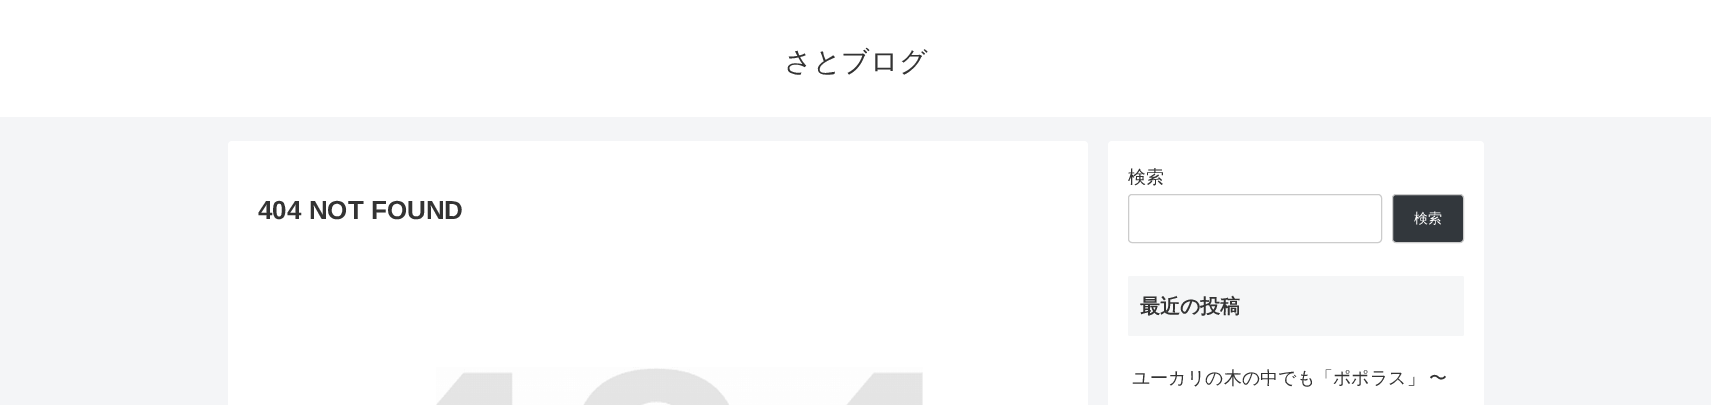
%!PS-Adobe-3.0
%%BoundingBox: 0 0 1711 405
%%LanguageLevel: 3
%%Pages: 1
%%EndComments
%%BeginProlog
/f { fill } bind def
/S { stroke } bind def
/q { gsave } bind def
/Q { grestore } bind def
/fn { [ exch dup neg 0 0 3 -1 roll 0 0 ] selectfont } def
/tx { moveto show } def
/bx { rectfill } def
/rr { 5 dict begin { /r /h /w /y /x } { exch def } forall
  x r add y moveto x w add y 2 copy h add r arct x w add y h add x 1 index r arct
  x y h add x y r arct x y 2 copy exch w add exch r arct closepath end } def
/im { 5 dict begin { /h /w /y /x /name } { exch def } forall
  gsave x y translate w h scale
  w h 8 [w 0 0 h 0 0] name (r) file false 3 colorimage grestore end } def
%%EndProlog
%%BeginSetup
<< /PageSize [1711 405] >> setpagedevice
%%EndSetup
%%Page: 1 1
0 405 translate 1 -1 scale
4 setmiterlimit
0.957 0.961 0.969 setrgbcolor
0 0 1711 405 bx
1 setgray
0 0 1711 117 bx
/WenQuanYiZenHei-Medium 28 fn
0.2 setgray
(さとブログ) 784 71 tx
1 setgray
228 141 860 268 4 rr f
/LiberationSans-Bold 26 fn
0.2 setgray
(404 NOT FOUND) 258 219 tx
(image0.raw) 436 367 487 38 im
1 setgray
1108 141 376 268 4 rr f
/WenQuanYiZenHei-Medium 18 fn
0.2 setgray
(検索) 1128 183 tx
0.8 setgray
1128.5 194.5 253 48 3.5 rr S
0.196 0.216 0.235 setrgbcolor
1392.5 194.5 71 48 3.5 rr q f Q
0.8 setgray
S
/WenQuanYiZenHei-Medium 14 fn
1 setgray
(検索) 1414 223 tx
0.961 0.965 0.969 setrgbcolor
1128 276 336 60 2 rr f
/WenQuanYiZenHei-Bold 20 fn
0.2 setgray
(最近の投稿) 1140 313 tx
/WenQuanYiZenHei-Medium 18 fn
(ユーカリの木の中でも「ポポラス」) 1132 384 tx
(〜) 1429 384 tx
showpage
%%EOF
